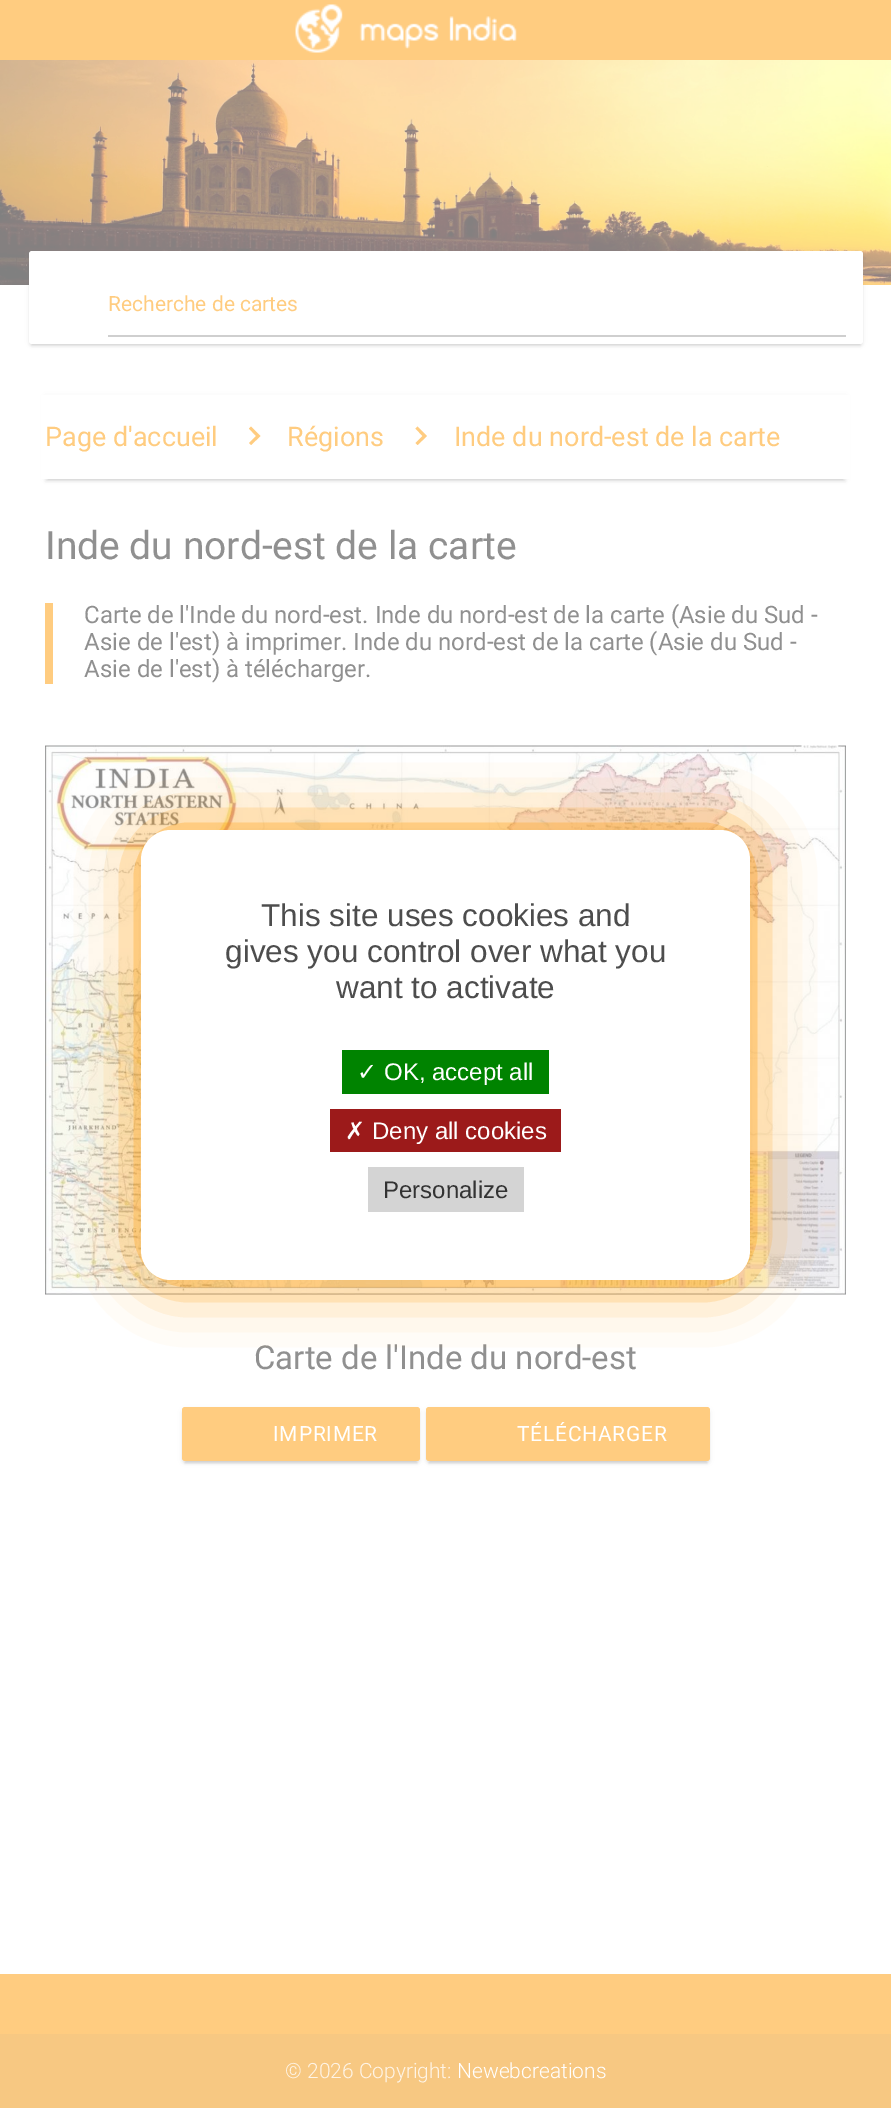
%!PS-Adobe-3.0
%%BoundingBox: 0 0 891 2108
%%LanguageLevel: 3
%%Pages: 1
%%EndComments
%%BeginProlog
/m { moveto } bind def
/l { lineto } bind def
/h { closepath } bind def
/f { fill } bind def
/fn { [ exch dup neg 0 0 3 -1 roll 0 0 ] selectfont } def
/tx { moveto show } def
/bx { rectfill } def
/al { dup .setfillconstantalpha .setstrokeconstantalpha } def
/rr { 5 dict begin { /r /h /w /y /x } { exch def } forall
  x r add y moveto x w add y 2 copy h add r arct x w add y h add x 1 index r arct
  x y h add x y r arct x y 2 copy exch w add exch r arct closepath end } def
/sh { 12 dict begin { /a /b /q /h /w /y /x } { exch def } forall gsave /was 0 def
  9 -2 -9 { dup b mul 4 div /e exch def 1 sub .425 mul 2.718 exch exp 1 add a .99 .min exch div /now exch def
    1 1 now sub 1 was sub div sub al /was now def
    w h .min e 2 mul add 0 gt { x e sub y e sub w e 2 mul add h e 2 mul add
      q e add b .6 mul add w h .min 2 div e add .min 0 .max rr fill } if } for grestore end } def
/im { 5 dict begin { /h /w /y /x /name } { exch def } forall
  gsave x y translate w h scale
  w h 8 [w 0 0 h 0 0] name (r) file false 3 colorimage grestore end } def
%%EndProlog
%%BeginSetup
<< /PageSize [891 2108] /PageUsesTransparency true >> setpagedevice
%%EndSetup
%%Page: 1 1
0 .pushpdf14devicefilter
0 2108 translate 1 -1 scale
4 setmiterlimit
1 setgray
0 0 891 2108 bx
1 0.8 0.502 setrgbcolor
0 0 891 60 bx
(image0.raw) 295 4 222 49 im
(image1.raw) 0 60 891 225 im
0.502 setgray
32 258 828 87 0 1 0.2 sh
29 252 834 93 3 4 0.12 sh
29 254 834 93 3 1.5 0.14 sh
1 setgray
29 251 834 93 3 rr f
/Roboto-Regular 21 fn
1 0.8 0.502 setrgbcolor
(Recherche de cartes) 108 311 tx
0.812 setgray
108 335 738 2 bx
0.502 setgray
48 402 795 78 0 1 0.2 sh
45 396 801 84 0 4 0.12 sh
45 398 801 84 0 1.5 0.14 sh
1 setgray
41 395 809 84 bx
/Roboto-Regular 27 fn
1 0.8 0.502 setrgbcolor
(Page d'accueil) 45 446 tx
251 426.5 m 260.5 436 l 251 445 l 249 443 l 256 436 l 249 428.5 l h f
(Régions) 287 446 tx
417.5 426.5 m 427 436 l 417.5 445 l 415.5 443 l 422.5 436 l 415.5 428.5 l h f
(Inde du nord-est de la carte) 454 446 tx
/Roboto-Regular 39 fn
0.565 setgray
(Inde du nord-est de la carte) 45 559 tx
1 0.8 0.502 setrgbcolor
45 603 8 81 bx
/Roboto-Regular 24 fn
0.565 setgray
(Carte de l'Inde du nord-est. Inde du nord-est de la carte \(Asie du Sud -) 84 623 tx
(Asie de l'est\) à imprimer. Inde du nord-est de la carte \(Asie du Sud -) 84 650 tx
(Asie de l'est\) à télécharger.) 84 677 tx
(image2.raw) 45 745 801 550 im
/Roboto-Regular 33 fn
(Carte de l'Inde du nord-est) 254 1369 tx
0.502 setgray
185 1415 232 48 0 1 0.2 sh
182 1409 238 54 3 4 0.12 sh
182 1410 238 54 3 1.5 0.14 sh
1 0.8 0.502 setrgbcolor
182 1407 238 54 3 rr f
/Roboto-Regular 21 fn
1 setgray
273 1441 m 0.75 0 (IMPRIMER) ashow
0.502 setgray
429 1415 278 48 0 1 0.2 sh
426 1409 284 54 3 4 0.12 sh
426 1410 284 54 3 1.5 0.14 sh
1 0.8 0.502 setrgbcolor
426 1407 284 54 3 rr f
1 setgray
517 1441 m 0.75 0 (TÉLÉCHARGER) ashow
1 0.596 0 setrgbcolor
141 830 609 450 30 30 1 sh
1 setgray
141 830 609 450 30 rr f
/LiberationSans-Regular 31.5 fn
0.302 setgray
(This site uses cookies and) 261 926 tx
(gives you control over what you) 225 962 tx
(want to activate) 336 998 tx
0 0.514 0 setrgbcolor
342 1050 207 44 bx
/DejaVuSans-Regular 24 fn
1 setgray
(✓) 357 1080 tx
/LiberationSans-Regular 24 fn
(OK, accept all) 384 1080 tx
0.612 0.102 0.102 setrgbcolor
330 1109 231 43 bx
/DejaVuSans-Regular 24 fn
1 setgray
(✗) 345 1139 tx
/LiberationSans-Regular 24 fn
(Deny all cookies) 372 1139 tx
0.831 setgray
368 1167 156 45 bx
0.2 setgray
(Personalize) 383 1198 tx
1 0.8 0.502 setrgbcolor
0 1974 891 60 bx
0.969 0.784 0.51 setrgbcolor
0 2034 891 74 bx
/Roboto-Light 21 fn
0.996 0.957 0.902 setrgbcolor
(© 2026 Copyright:) 285 2078 tx
1 setgray
(Newebcreations) 457 2078 tx
.poppdf14devicefilter showpage
%%EOF
